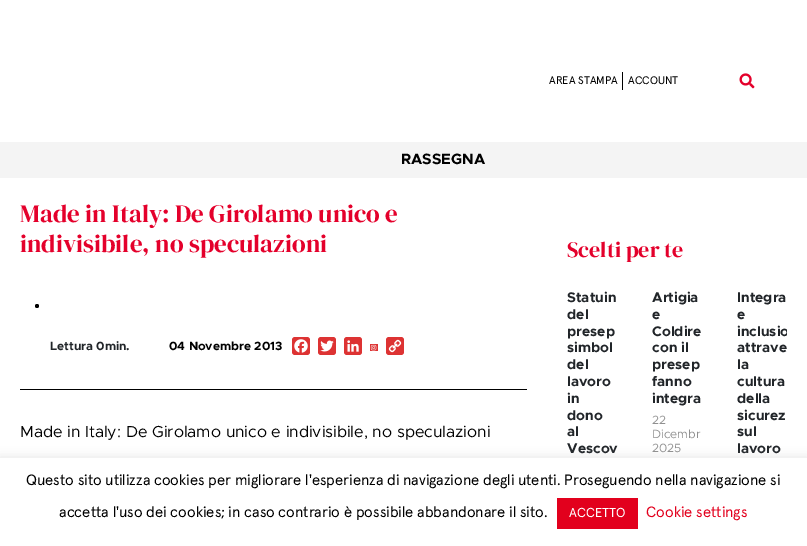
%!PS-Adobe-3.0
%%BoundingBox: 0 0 807 546
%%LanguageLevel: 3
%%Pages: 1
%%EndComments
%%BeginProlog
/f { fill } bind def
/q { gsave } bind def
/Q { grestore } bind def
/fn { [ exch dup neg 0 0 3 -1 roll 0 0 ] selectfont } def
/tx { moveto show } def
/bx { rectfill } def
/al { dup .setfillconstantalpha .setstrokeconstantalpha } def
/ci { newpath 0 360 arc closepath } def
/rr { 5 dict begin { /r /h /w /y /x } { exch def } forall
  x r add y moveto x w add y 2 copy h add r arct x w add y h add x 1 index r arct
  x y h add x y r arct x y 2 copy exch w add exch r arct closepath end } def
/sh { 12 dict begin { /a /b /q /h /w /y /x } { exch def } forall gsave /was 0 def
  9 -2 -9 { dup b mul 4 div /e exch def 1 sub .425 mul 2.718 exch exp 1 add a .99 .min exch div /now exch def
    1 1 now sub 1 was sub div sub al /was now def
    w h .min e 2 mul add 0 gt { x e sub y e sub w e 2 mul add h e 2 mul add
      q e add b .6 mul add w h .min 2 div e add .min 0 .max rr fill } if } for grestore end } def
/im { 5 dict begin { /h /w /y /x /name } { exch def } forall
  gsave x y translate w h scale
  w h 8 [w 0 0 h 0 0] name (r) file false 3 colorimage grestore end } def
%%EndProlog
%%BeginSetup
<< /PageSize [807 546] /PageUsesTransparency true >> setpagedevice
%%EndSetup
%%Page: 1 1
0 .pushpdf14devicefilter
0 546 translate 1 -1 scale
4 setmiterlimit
1 setgray
0 0 807 546 bx
/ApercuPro-Regular 11 fn
0 setgray
(AREA STAMPA) 549 84 tx
622 72 1 18 bx
(ACCOUNT) 628 84 tx
(image0.raw) 739 73 16 16 im
0.957 setgray
0 142 807 36 bx
/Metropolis-Bold 15 fn
0 setgray
(RASSEGNA) 401 164 tx
/DMSerifDisplay-Regular 25 fn
0.894 0 0.169 setrgbcolor
(Made in Italy: De Girolamo unico e) 20 222 tx
(indivisibile, no speculazioni) 20 252 tx
0 setgray
37 306 2 ci f
/Metropolis-Bold 12 fn
0.129 0.145 0.161 setrgbcolor
(Lettura 0min.) 50 350 tx
0 setgray
(04 Novembre 2013) 169 350 tx
0.867 0.2 0.2 setrgbcolor
292 337 18 18 3 rr f
(image1.raw) 294 339 14 14 im
318 337 18 18 3 rr f
(image2.raw) 320 340 14 12 im
344 337 18 18 3 rr f
(image3.raw) 347 340 12 12 im
370 344 8 7 bx
(image4.raw) 370 344 7 7 im
386 337 18 18 3 rr f
(image5.raw) 388 339 14 14 im
0 setgray
20 389 507 1 bx
/Metropolis-Regular 16 fn
(Made in Italy: De Girolamo unico e indivisibile, no speculazioni) 20 437 tx
/DMSerifDisplay-Regular 22 fn
0.894 0 0.169 setrgbcolor
(Scelti per te) 567 257 tx
/Metropolis-Bold 14 fn
0.129 0.145 0.161 setrgbcolor
(Statuin) 567 302 tx
(del) 567 319 tx
(presep) 567 336 tx
(simbol) 567 352 tx
(del) 567 369 tx
(lavoro) 567 386 tx
(in) 567 403 tx
(dono) 567 420 tx
(al) 567 436 tx
(Vescov) 567 453 tx
(Artigia) 652 302 tx
(e) 652 319 tx
(Coldire) 652 336 tx
(con il) 652 352 tx
(presep) 652 369 tx
(fanno) 652 386 tx
(integra) 652 403 tx
/Metropolis-Regular 12 fn
0.565 setgray
(22) 652 424 tx
(Dicembr) 652 438 tx
(2025) 652 452 tx
/Metropolis-Bold 14 fn
0.129 0.145 0.161 setrgbcolor
(Integra) 737 302 tx
(e) 737 319 tx
q
717 280 70 226 rectclip
(inclusio) 737 336 tx
Q
(attrave) 737 352 tx
(la) 737 369 tx
(cultura) 737 386 tx
(della) 737 403 tx
(sicurez) 737 420 tx
(sul) 737 436 tx
(lavoro) 737 453 tx
0.675 0.671 0.671 setrgbcolor
0 457 807 88 0 5 0.3 sh
1 setgray
0 458 807 88 bx
/ApercuPro-Regular 15 fn
0 setgray
(Questo sito utilizza cookies per migliorare l'esperienza di navigazione degli utenti. Proseguendo nella navigazione si) 26 485 tx
(accetta l'uso dei cookies; in caso contrario è possibile abbandonare il sito.) 59 517 tx
0.886 0 0.114 setrgbcolor
557 498 81 31 bx
/ApercuPro-Regular 13 fn
1 setgray
(ACCETTO) 569 517 tx
/ApercuPro-Regular 15 fn
0.886 0 0.114 setrgbcolor
(Cookie settings) 646 517 tx
.poppdf14devicefilter showpage
%%EOF
